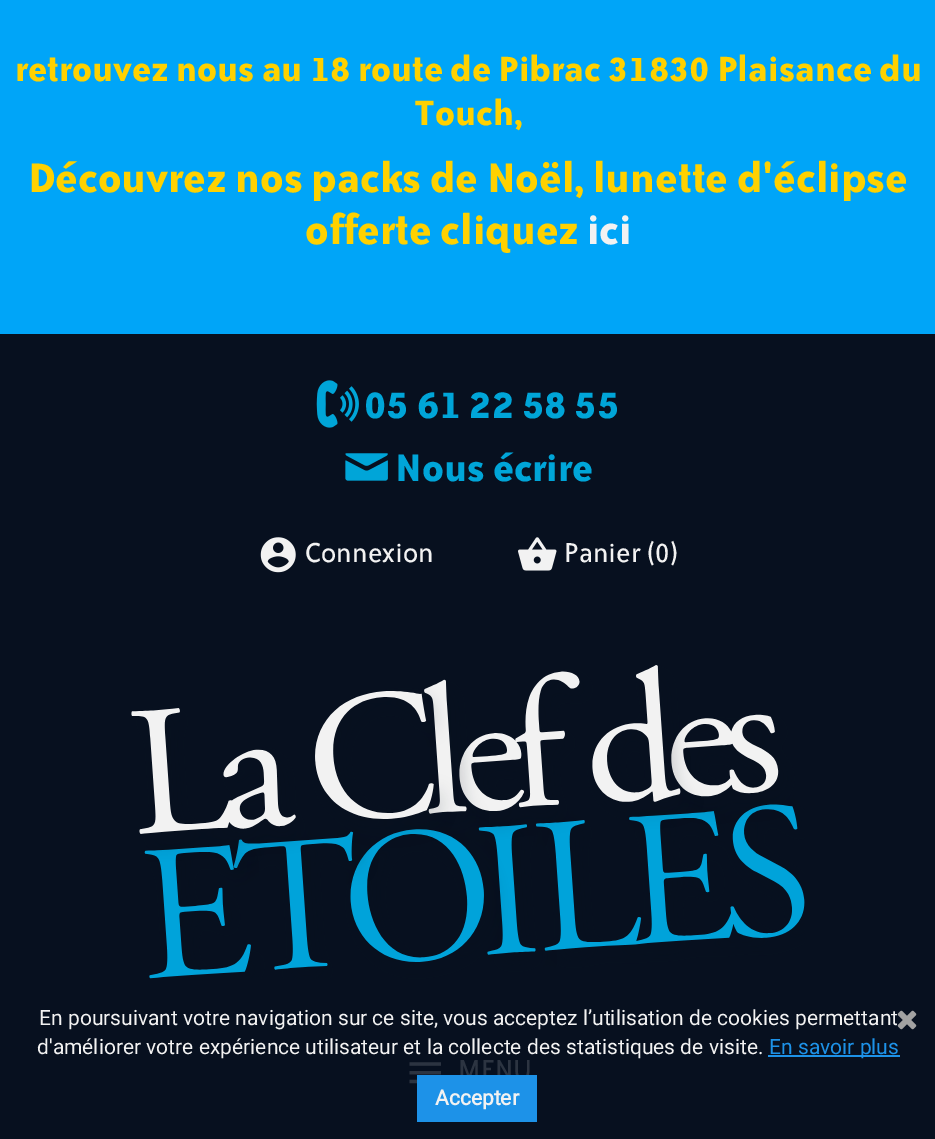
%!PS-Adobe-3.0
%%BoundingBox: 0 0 935 1139
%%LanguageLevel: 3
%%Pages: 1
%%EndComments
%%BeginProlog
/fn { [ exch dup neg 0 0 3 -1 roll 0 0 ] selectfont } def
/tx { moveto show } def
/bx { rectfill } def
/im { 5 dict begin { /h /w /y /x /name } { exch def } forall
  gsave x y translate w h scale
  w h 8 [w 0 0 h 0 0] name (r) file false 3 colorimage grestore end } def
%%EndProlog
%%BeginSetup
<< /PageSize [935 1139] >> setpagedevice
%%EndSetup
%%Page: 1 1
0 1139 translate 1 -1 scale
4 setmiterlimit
0.027 0.063 0.122 setrgbcolor
0 0 935 1139 bx
0 0.647 0.973 setrgbcolor
0 0 935 334 bx
/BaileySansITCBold-Bold 40.2 fn
1 0.82 0 setrgbcolor
(retrouvez nous au 18 route de Pibrac 31830 Plaisance du) 15 81 tx
(Touch,) 414 125 tx
/BaileySansITCBold-Bold 47.25 fn
(Découvrez nos packs de Noël, lunette d'éclipse) 28 192 tx
(offerte cliquez) 305 244 tx
0.949 setgray
(ici) 587 244 tx
(image0.raw) 316 380 43 48 im
/BaileySansITCBold-Bold 44 fn
0 0.647 0.847 setrgbcolor
(05 61 22 58 55) 364 418 tx
(image1.raw) 345 453 43 28 im
(Nous écrire) 395 481 tx
(image2.raw) 260 537 36 36 im
/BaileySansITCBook-Regular 31.5 fn
0.949 setgray
(Connexion) 305 562 tx
(image3.raw) 518 537 39 34 im
(Panier \(0\)) 564 562 tx
(image4.raw) 131 665 674 314 im
(image5.raw) 409 1062 32 22 im
0.173 0.204 0.255 setrgbcolor
(MENU) 458 1079 tx
/Roboto-Regular 21 fn
0.949 setgray
(En poursuivant votre navigation sur ce site, vous acceptez l’utilisation de cookies permettant) 39 1025 tx
(d'améliorer votre expérience utilisateur et la collecte des statistiques de visite.) 37 1054 tx
0.114 0.573 0.91 setrgbcolor
768 1055 132 2 bx
(En savoir plus) 769 1054 tx
417 1075 120 47 bx
/Roboto-Bold 21 fn
0.949 setgray
(Accepter) 435 1105 tx
(image6.raw) 897 1010 20 20 im
showpage
%%EOF
